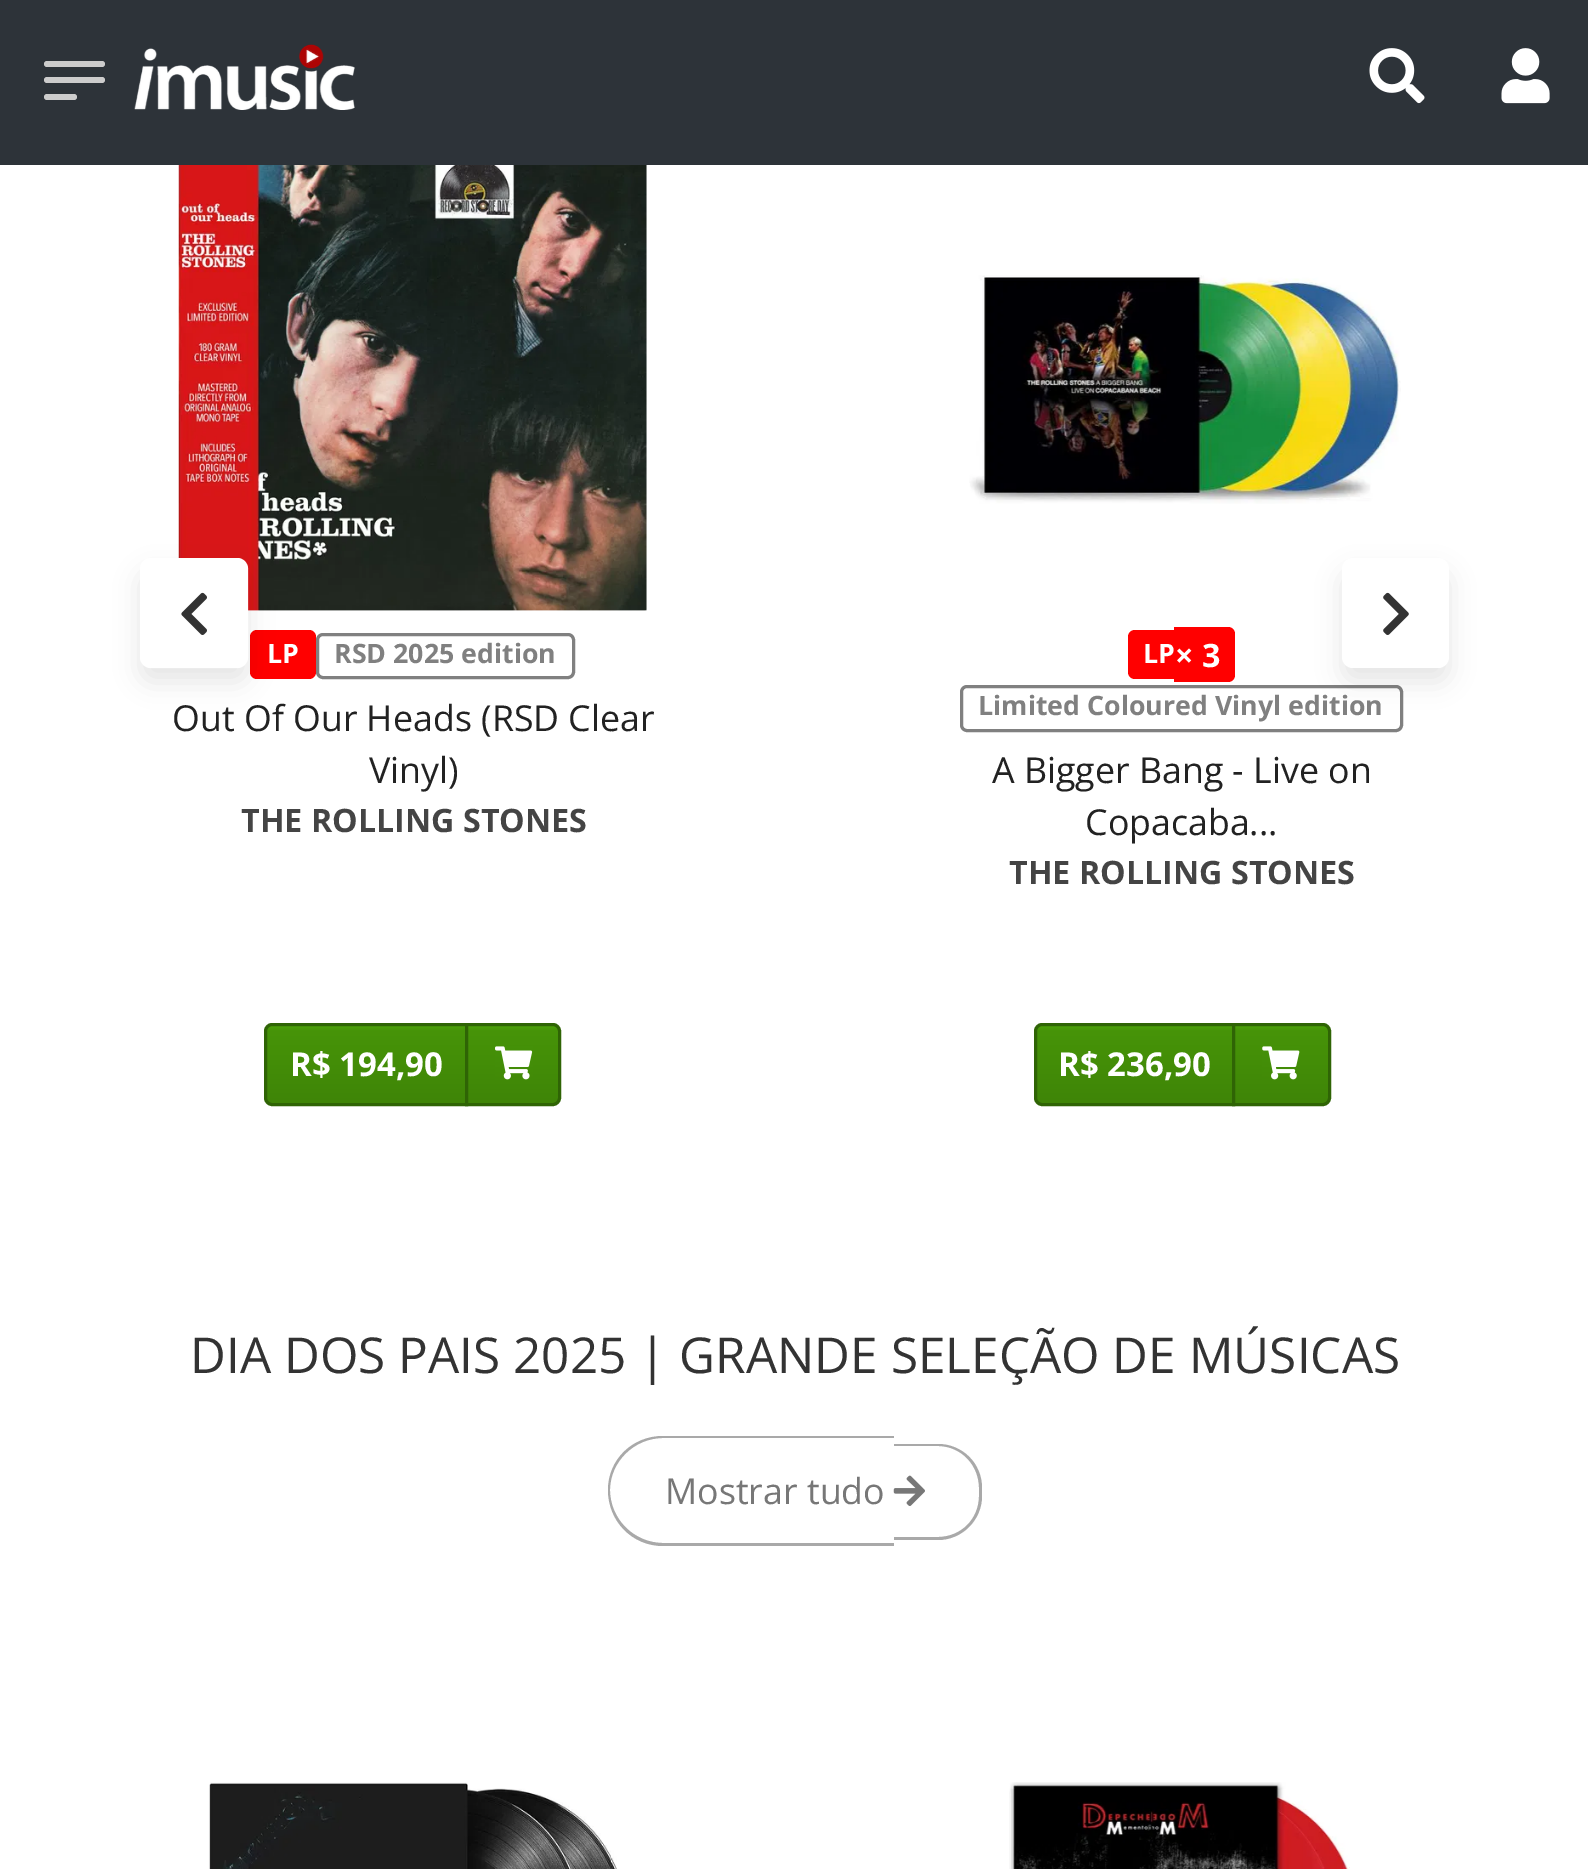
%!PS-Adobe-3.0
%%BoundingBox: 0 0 1588 1869
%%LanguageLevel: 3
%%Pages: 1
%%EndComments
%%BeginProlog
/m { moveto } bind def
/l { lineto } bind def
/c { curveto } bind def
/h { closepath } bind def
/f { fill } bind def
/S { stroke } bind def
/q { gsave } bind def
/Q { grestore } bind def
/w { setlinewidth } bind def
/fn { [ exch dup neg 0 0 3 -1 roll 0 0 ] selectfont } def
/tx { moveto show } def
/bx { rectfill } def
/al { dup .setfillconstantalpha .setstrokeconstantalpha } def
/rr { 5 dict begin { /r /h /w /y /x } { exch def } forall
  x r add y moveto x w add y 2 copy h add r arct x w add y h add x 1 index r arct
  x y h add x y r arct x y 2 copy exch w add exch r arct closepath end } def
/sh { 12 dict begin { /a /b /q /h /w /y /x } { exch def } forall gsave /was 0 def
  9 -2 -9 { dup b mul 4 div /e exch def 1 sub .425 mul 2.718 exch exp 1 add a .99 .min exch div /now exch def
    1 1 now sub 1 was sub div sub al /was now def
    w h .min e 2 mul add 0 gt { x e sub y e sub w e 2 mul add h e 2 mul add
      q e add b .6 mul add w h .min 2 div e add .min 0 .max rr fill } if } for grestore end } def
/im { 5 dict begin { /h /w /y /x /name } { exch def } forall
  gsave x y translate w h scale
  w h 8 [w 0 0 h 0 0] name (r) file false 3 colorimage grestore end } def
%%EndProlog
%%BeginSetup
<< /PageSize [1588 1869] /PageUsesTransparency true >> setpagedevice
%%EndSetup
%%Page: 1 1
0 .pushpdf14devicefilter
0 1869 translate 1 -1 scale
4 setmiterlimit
1 setgray
0 0 1588 1869 bx
0.176 0.2 0.224 setrgbcolor
0 0 1588 165 bx
0.8 setgray
44 61 61 6 3 rr f
44 77 61 6 3 rr f
44 94 33 6 3 rr f
(image0.raw) 134 44 221 66 im
(image1.raw) 1369 48 56 56 im
(image2.raw) 1501 48 49 56 im
(image5.raw) 178 165 469 446 im
(image6.raw) 179 165 468 445 im
1 0 0 setrgbcolor
250 630 66 49 7 rr f
0 setgray
140 572 108 110 11 12.5 0.1 sh
1 setgray
140 558 108 110 11 rr f
0.5 al
6 w
143 561 102 104 8 rr S
1 al
(image3.raw) 181 592 26 43 im
0.502 setgray
3 w
961.5 686.5 440 44 5.5 rr S
0 setgray
1342 572 107 110 11 12.5 0.1 sh
1 setgray
1342 558 107 110 11 rr f
(image4.raw) 1383 592 26 43 im
/OpenSans-Bold 26.75 fn
(LP) 267 663 tx
0.502 setgray
317.5 634.5 256 43 5.5 rr S
(RSD 2025 edition) 334 663 tx
/OpenSans-Regular 35.75 fn
0.133 setgray
(Out Of Our Heads \(RSD Clear) 172 731 tx
(Vinyl\)) 369 783 tx
/OpenSans-Bold 32.25 fn
0.267 setgray
(THE ROLLING STONES) 241 832 tx
q 267 1026 m 465 1026 l 465 1103 l 267 1103 l h clip newpath
<< /ShadingType 2 /ColorSpace /DeviceRGB /Coords [366 1026 366 1103] /Extend [true true] /Function << /FunctionType 3 /Domain [0 1] /Functions [<< /FunctionType 2 /Domain [0 1] /C0 [0.302 0.639 0.035] /C1 [0.275 0.58 0.031] /N 1 >> << /FunctionType 2 /Domain [0 1] /C0 [0.275 0.58 0.031] /C1 [0.247 0.522 0.027] /N 1 >>] /Bounds [0.06] /Encode [0 1 0 1] >> >> shfill Q
0.184 0.392 0.02 setrgbcolor
272 1024.5 m 466.5 1024.5 l 466.5 1104.5 l 272 1104.5 l 268.5 1104.5 265.5 1101.5 265.5 1098 c 265.5 1031 l 265.5 1027.5 268.5 1024.5 272 1024.5 c h S
/OpenSans-Bold 33 fn
1 setgray
(R$ 194,90) 290 1076 tx
q 468 1026 m 558 1026 l 558 1103 l 468 1103 l h clip newpath
<< /ShadingType 2 /ColorSpace /DeviceRGB /Coords [513 1026 513 1103] /Extend [true true] /Function << /FunctionType 3 /Domain [0 1] /Functions [<< /FunctionType 2 /Domain [0 1] /C0 [0.302 0.639 0.035] /C1 [0.275 0.58 0.031] /N 1 >> << /FunctionType 2 /Domain [0 1] /C0 [0.275 0.58 0.031] /C1 [0.247 0.522 0.027] /N 1 >>] /Bounds [0.06] /Encode [0 1 0 1] >> >> shfill Q
0.184 0.392 0.02 setrgbcolor
466.5 1024.5 m 553 1024.5 l 556.5 1024.5 559.5 1027.5 559.5 1031 c 559.5 1098 l 559.5 1101.5 556.5 1104.5 553 1104.5 c 466.5 1104.5 l h S
(image7.raw) 495 1046 38 34 im
(image8.raw) 969 275 432 229 im
(image9.raw) 982 276 417 223 im
1 0 0 setrgbcolor
1135 630 m 1174 630 l 1174 679 l 1135 679 l 1131 679 1128 676 1128 672 c 1128 637 l 1128 633 1131 630 1135 630 c h f
/OpenSans-Bold 26.75 fn
1 setgray
(LP) 1143 663 tx
1 0 0 setrgbcolor
1174 627 m 1228 627 l 1232 627 1235 630 1235 634 c 1235 675 l 1235 679 1232 682 1228 682 c 1174 682 l h f
/OpenSans-Bold 32.25 fn
1 setgray
(× 3) 1175 667 tx
/OpenSans-Bold 26.75 fn
0.502 setgray
(Limited Coloured Vinyl edition) 978 715 tx
/OpenSans-Regular 35.75 fn
0.133 setgray
(A Bigger Bang - Live on) 992 783 tx
(Copacaba...) 1085 835 tx
/OpenSans-Bold 32.25 fn
0.267 setgray
(THE ROLLING STONES) 1009 884 tx
q 1037 1026 m 1232 1026 l 1232 1103 l 1037 1103 l h clip newpath
<< /ShadingType 2 /ColorSpace /DeviceRGB /Coords [1134 1026 1134 1103] /Extend [true true] /Function << /FunctionType 3 /Domain [0 1] /Functions [<< /FunctionType 2 /Domain [0 1] /C0 [0.302 0.639 0.035] /C1 [0.275 0.58 0.031] /N 1 >> << /FunctionType 2 /Domain [0 1] /C0 [0.275 0.58 0.031] /C1 [0.247 0.522 0.027] /N 1 >>] /Bounds [0.06] /Encode [0 1 0 1] >> >> shfill Q
0.184 0.392 0.02 setrgbcolor
1042 1024.5 m 1233.5 1024.5 l 1233.5 1104.5 l 1042 1104.5 l 1038.5 1104.5 1035.5 1101.5 1035.5 1098 c 1035.5 1031 l 1035.5 1027.5 1038.5 1024.5 1042 1024.5 c h S
/OpenSans-Bold 33 fn
1 setgray
(R$ 236,90) 1058 1076 tx
q 1235 1026 m 1328 1026 l 1328 1103 l 1235 1103 l h clip newpath
<< /ShadingType 2 /ColorSpace /DeviceRGB /Coords [1282 1026 1282 1103] /Extend [true true] /Function << /FunctionType 3 /Domain [0 1] /Functions [<< /FunctionType 2 /Domain [0 1] /C0 [0.302 0.639 0.035] /C1 [0.275 0.58 0.031] /N 1 >> << /FunctionType 2 /Domain [0 1] /C0 [0.275 0.58 0.031] /C1 [0.247 0.522 0.027] /N 1 >>] /Bounds [0.06] /Encode [0 1 0 1] >> >> shfill Q
0.184 0.392 0.02 setrgbcolor
1233.5 1024.5 m 1323 1024.5 l 1326.5 1024.5 1329.5 1027.5 1329.5 1031 c 1329.5 1098 l 1329.5 1101.5 1326.5 1104.5 1323 1104.5 c 1233.5 1104.5 l h S
(image10.raw) 1262 1046 38 34 im
/OpenSans-Regular 49.5 fn
0.2 setgray
(DIA DOS PAIS 2025 | GRANDE SELEÇÃO DE MÚSICAS) 190 1373 tx
0.663 setgray
663 1436 m 894 1436 l 894 1546 l 663 1546 l 632 1546 608 1521 608 1490 c 608 1460 632 1436 663 1436 c h 663 1438 m 894 1438 l 894 1543 l 663 1543 l 634 1543 610 1519 610 1490 c 610 1462 634 1438 663 1438 c h eofill
894 1444 m 938 1444 l 962 1444 982 1463 982 1488 c 982 1496 l 982 1520 962 1540 938 1540 c 894 1540 l h 894 1446 m 938 1446 l 961 1446 979 1465 979 1488 c 979 1496 l 979 1519 961 1537 938 1537 c 894 1537 l h eofill
/OpenSans-Regular 35.75 fn
0.467 setgray
(Mostrar tudo) 665 1504 tx
(image11.raw) 893 1475 32 31 im
(image12.raw) 208 1782 409 1 im
(image13.raw) 208 1783 409 86 im
(image14.raw) 1009 1782 341 87 im
(image15.raw) 1014 1786 334 83 im
.poppdf14devicefilter showpage
%%EOF
